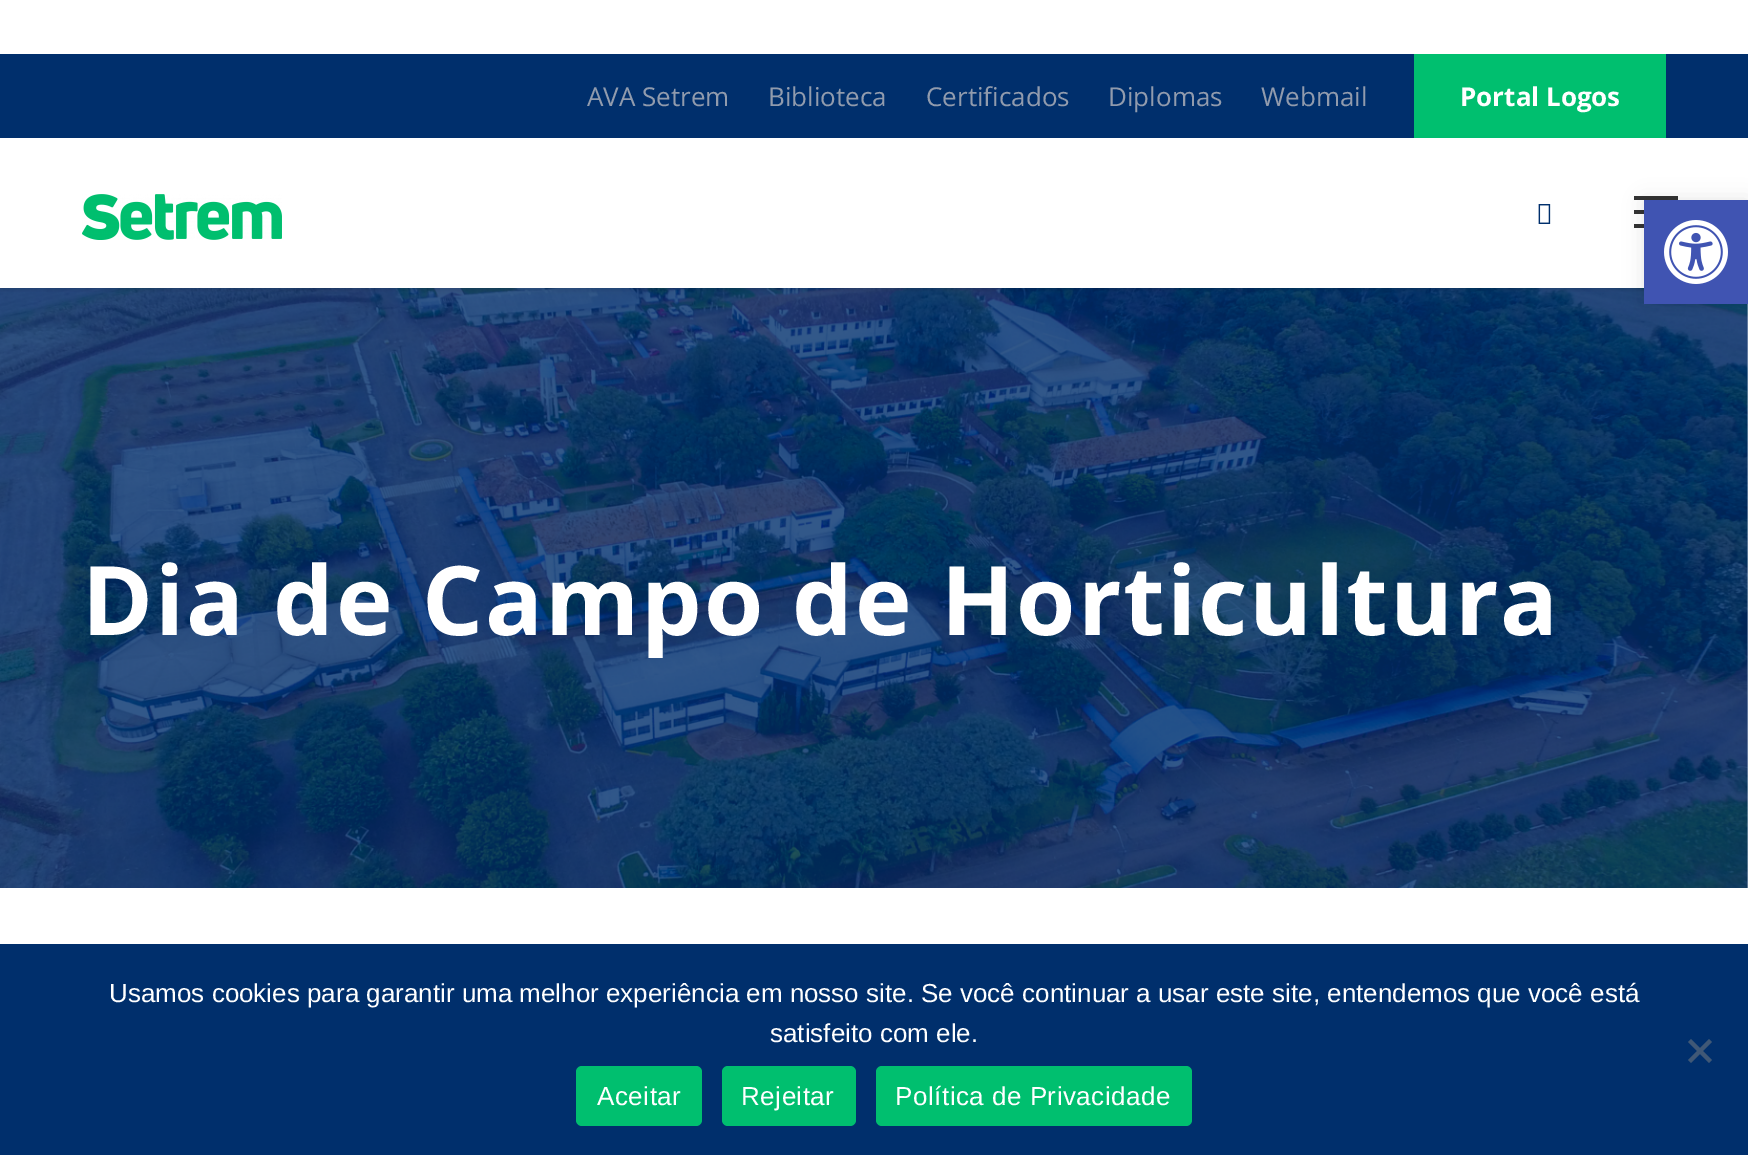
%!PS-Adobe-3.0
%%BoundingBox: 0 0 1748 1155
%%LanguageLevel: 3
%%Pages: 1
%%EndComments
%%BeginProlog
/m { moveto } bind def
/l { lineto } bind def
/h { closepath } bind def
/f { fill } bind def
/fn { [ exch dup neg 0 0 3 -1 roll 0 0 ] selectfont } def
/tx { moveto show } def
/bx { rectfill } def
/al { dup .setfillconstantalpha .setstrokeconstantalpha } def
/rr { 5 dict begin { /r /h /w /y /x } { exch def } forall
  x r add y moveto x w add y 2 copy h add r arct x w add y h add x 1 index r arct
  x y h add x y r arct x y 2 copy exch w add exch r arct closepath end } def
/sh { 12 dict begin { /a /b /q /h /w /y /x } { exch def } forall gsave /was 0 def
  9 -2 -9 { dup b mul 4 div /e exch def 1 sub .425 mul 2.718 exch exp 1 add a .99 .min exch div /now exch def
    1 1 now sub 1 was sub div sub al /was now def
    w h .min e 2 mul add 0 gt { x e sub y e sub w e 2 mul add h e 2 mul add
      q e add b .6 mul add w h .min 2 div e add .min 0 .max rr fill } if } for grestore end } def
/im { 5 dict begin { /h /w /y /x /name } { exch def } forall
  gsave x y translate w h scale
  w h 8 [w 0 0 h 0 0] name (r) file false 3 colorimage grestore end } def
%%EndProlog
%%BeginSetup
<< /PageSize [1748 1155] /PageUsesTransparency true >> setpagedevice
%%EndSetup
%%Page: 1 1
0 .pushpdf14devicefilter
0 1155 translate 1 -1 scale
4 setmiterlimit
1 setgray
0 0 1748 1155 bx
0 0.184 0.424 setrgbcolor
0 54 1748 84 bx
/OpenSans-Regular 26 fn
0.569 0.608 0.678 setrgbcolor
(AVA Setrem) 587 106 tx
(Biblioteca) 768 106 tx
(Certificados) 926 106 tx
(Diplomas) 1108 106 tx
(Webmail) 1261 106 tx
0 0.749 0.435 setrgbcolor
1414 54 252 84 bx
/OpenSans-Bold 26 fn
1 setgray
(Portal Logos) 1460 106 tx
(image3.raw) 0 288 1748 600 im
0 setgray
0 140 1748 150 0 2 0.1 sh
1 setgray
0 138 1748 150 bx
(image0.raw) 82 194 200 46 im
(image1.raw) 1538 204 13 20 im
0.2 setgray
1634 196 44 4 bx
1634 210 10 4 bx
1634 224 10 4 bx
0 setgray
1644 200 104 104 0 10 0.1 sh
0.251 0.329 0.698 setrgbcolor
1644 200 104 104 bx
(image2.raw) 1664 220 64 64 im
/OpenSans-Bold 96 fn
1 setgray
82 635 m 2 0 (Dia de Campo de Horticultura) ashow
0 0.184 0.424 setrgbcolor
0 944 1748 211 bx
/LiberationSans-Regular 26 fn
1 setgray
(Usamos cookies para garantir uma melhor experiência em nosso site. Se você continuar a usar este site, entendemos que você está) 109 1002 tx
(satisfeito com ele.) 770 1042 tx
0.251 0.345 0.463 setrgbcolor
1709 1039 m 1712 1042 l 1691 1063 l 1688 1060 l h f
1688 1042 m 1691 1039 l 1712 1060 l 1709 1063 l h f
0 0.749 0.435 setrgbcolor
576 1066 126 60 6 rr f
1 setgray
597 1105 m 0.5 0 (Aceitar) ashow
0 0.749 0.435 setrgbcolor
722 1066 134 60 6 rr f
1 setgray
741 1105 m 0.5 0 (Rejeitar) ashow
0 0.749 0.435 setrgbcolor
876 1066 316 60 6 rr f
1 setgray
895 1105 m 0.5 0 (Política de Privacidade) ashow
.poppdf14devicefilter showpage
%%EOF
